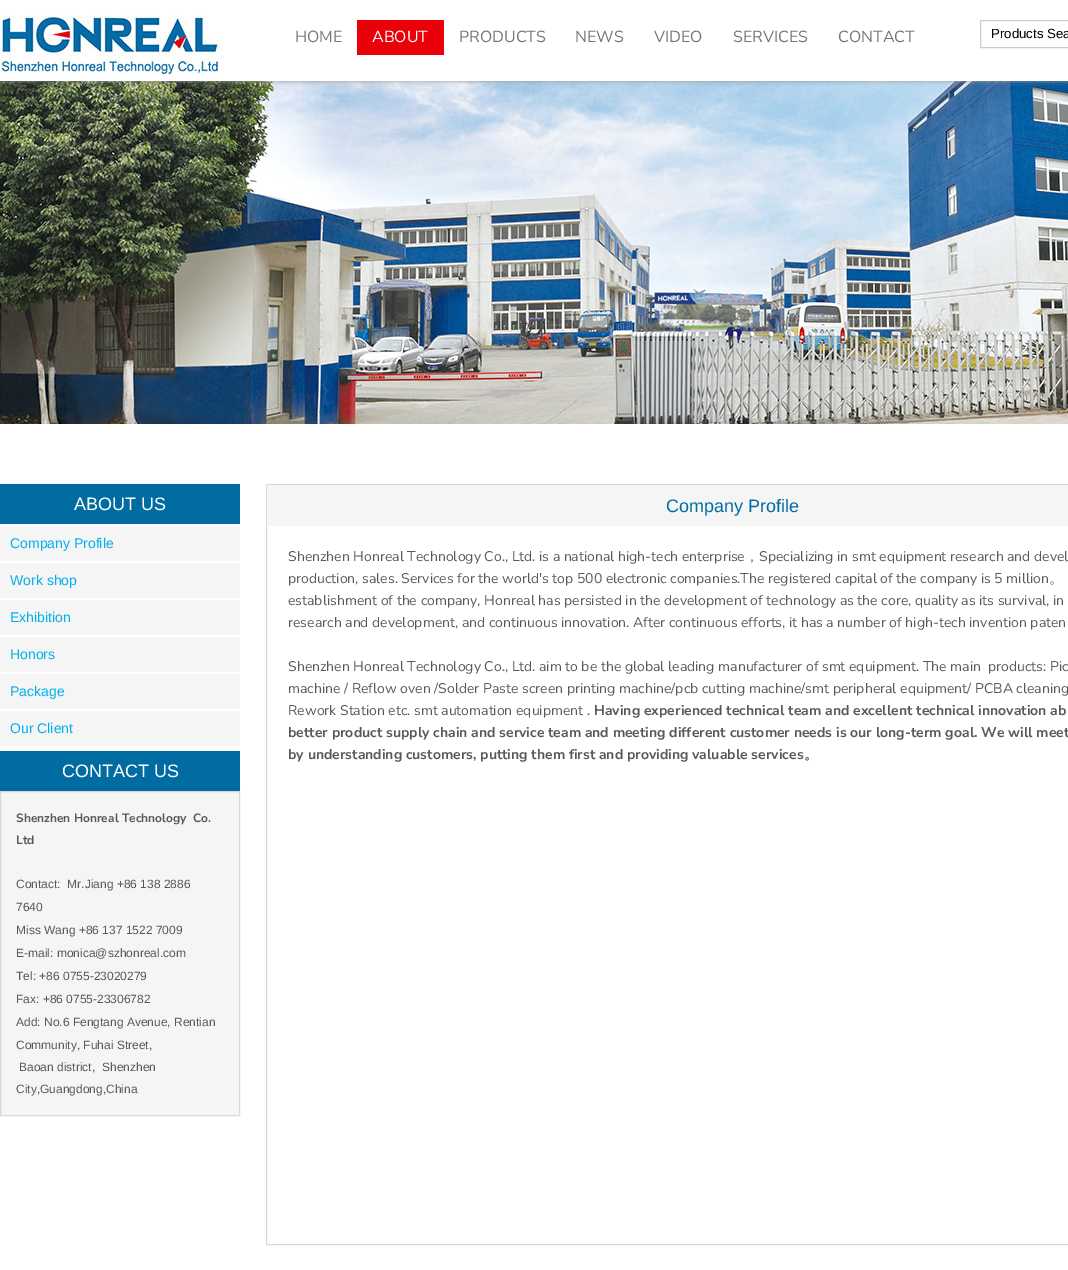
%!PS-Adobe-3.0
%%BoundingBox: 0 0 1068 1270
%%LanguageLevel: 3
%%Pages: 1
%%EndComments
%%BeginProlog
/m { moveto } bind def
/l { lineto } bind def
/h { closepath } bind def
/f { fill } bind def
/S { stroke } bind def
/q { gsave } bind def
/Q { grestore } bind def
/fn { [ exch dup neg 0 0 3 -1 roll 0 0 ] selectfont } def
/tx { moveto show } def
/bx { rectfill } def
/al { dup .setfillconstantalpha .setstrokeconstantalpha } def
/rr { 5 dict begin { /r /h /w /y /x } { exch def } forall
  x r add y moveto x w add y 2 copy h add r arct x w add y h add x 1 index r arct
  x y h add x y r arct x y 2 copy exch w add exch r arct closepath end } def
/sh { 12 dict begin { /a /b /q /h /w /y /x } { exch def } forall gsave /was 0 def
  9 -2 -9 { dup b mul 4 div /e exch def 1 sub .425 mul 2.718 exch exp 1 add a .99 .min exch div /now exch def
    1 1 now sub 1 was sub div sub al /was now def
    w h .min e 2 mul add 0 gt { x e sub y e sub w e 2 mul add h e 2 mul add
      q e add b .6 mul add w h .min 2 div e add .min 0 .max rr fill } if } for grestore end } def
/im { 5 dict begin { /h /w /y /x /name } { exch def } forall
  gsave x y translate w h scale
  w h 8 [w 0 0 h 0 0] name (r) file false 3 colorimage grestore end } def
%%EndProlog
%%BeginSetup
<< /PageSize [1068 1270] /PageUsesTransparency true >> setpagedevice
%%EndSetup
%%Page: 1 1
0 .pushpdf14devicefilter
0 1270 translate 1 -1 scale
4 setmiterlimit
1 setgray
0 0 1068 1270 bx
(image1.raw) 0 81 1068 343 im
0.604 setgray
0 0 1068 81 0 2.5 1 sh
1 setgray
0 0 1068 81 bx
(image0.raw) 0 15 224 59 im
/NunitoSans-Regular 16 fn
0.459 setgray
(HOME) 295 42 tx
0.914 0 0.031 setrgbcolor
357 20 87 35 bx
1 setgray
(ABOUT) 372 42 tx
0.459 setgray
(PRODUCTS) 459 42 tx
(NEWS) 575 42 tx
(VIDEO) 654 42 tx
(SERVICES) 733 42 tx
(CONTACT) 838 42 tx
0.804 setgray
980.5 20.5 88 27 rectstroke
/LiberationSans-Regular 13.25 fn
0 setgray
(Products Sea) 991 38 tx
0.004 0.424 0.635 setrgbcolor
0 484 240 40 bx
/LiberationSans-Regular 18 fn
1 setgray
(ABOUT US) 74 510 tx
0.961 setgray
0 526 240 35 bx
/LiberationSans-Regular 14 fn
0 0.686 0.925 setrgbcolor
(Company Profile) 10 548 tx
0.961 setgray
0 563 240 35 bx
0 0.686 0.925 setrgbcolor
(Work shop) 10 585 tx
0.961 setgray
0 600 240 35 bx
0 0.686 0.925 setrgbcolor
(Exhibition) 10 622 tx
0.961 setgray
0 637 240 35 bx
0 0.686 0.925 setrgbcolor
(Honors) 10 659 tx
0.961 setgray
0 674 240 35 bx
0 0.686 0.925 setrgbcolor
(Package) 10 696 tx
0.961 setgray
0 711 240 35 bx
0 0.686 0.925 setrgbcolor
(Our Client) 10 733 tx
0.004 0.424 0.635 setrgbcolor
0 751 240 40 bx
/LiberationSans-Regular 18 fn
1 setgray
(CONTACT US) 62 777 tx
0.961 setgray
0.5 791.5 m 239.5 791.5 l 239.5 1115.5 l 0.5 1115.5 l h q f Q
0.847 setgray
S
/NunitoSans-Bold 12 fn
0.345 setgray
(Shenzhen Honreal Technology  Co.) 16 822 tx
(Ltd) 16 844 tx
/LiberationSans-Regular 12 fn
(Contact:  Mr.Jiang +86 138 2886) 16 888 tx
(7640) 16 911 tx
(Miss Wang +86 137 1522 7009) 16 934 tx
(E-mail: monica@szhonreal.com) 16 957 tx
(Tel: +86 0755-23020279) 16 980 tx
(Fax: +86 0755-23306782) 16 1003 tx
(Add: No.6 Fengtang Avenue, Rentian) 16 1026 tx
(Community, Fuhai Street,) 16 1049 tx
(Baoan district,) 19 1071 tx
(Shenzhen) 102 1071 tx
(City,Guangdong,China) 16 1093 tx
0.847 setgray
266.5 484.5 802 760 rectstroke
0.961 setgray
268 486 800 40 bx
/LiberationSans-Regular 18 fn
0.004 0.424 0.635 setrgbcolor
(Company Profile) 666 512 tx
/NunitoSans-Regular 14 fn
0.345 setgray
(Shenzhen Honreal Technology Co., Ltd. is a national high-tech enterprise) 288 561 tx
/WenQuanYiZenHei-Medium 14 fn
(，) 745 561 tx
/NunitoSans-Regular 14 fn
(Specializing in smt equipment research and devel) 759 561 tx
(production, sales. Services for the world's top 500 electronic companies.The registered capital of the company is 5 million) 288 583 tx
/WenQuanYiZenHei-Medium 14 fn
(。) 1049 583 tx
/NunitoSans-Regular 14 fn
(establishment of the company, Honreal has persisted in the development of technology as the core, quality as its survival, in) 288 605 tx
(research and development, and continuous innovation. After continuous efforts, it has a number of high-tech invention paten) 288 627 tx
(Shenzhen Honreal Technology Co., Ltd. aim to be the global leading manufacturer of smt equipment. The main) 288 671 tx
(products: Pic) 988 671 tx
(machine / Reflow oven /Solder Paste screen printing machine/pcb cutting machine/smt peripheral equipment/ PCBA cleaning) 288 693 tx
(Rework Station etc. smt automation equipment .) 288 715 tx
/NunitoSans-Bold 14 fn
(Having experienced technical team and excellent technical innovation ab) 594 715 tx
(better product supply chain and service team and meeting different customer needs is our long-term goal. We will meet) 288 737 tx
(by understanding customers, putting them first and providing valuable services) 288 759 tx
/WenQuanYiZenHei-Bold 14 fn
(。) 804 759 tx
.poppdf14devicefilter showpage
%%EOF
